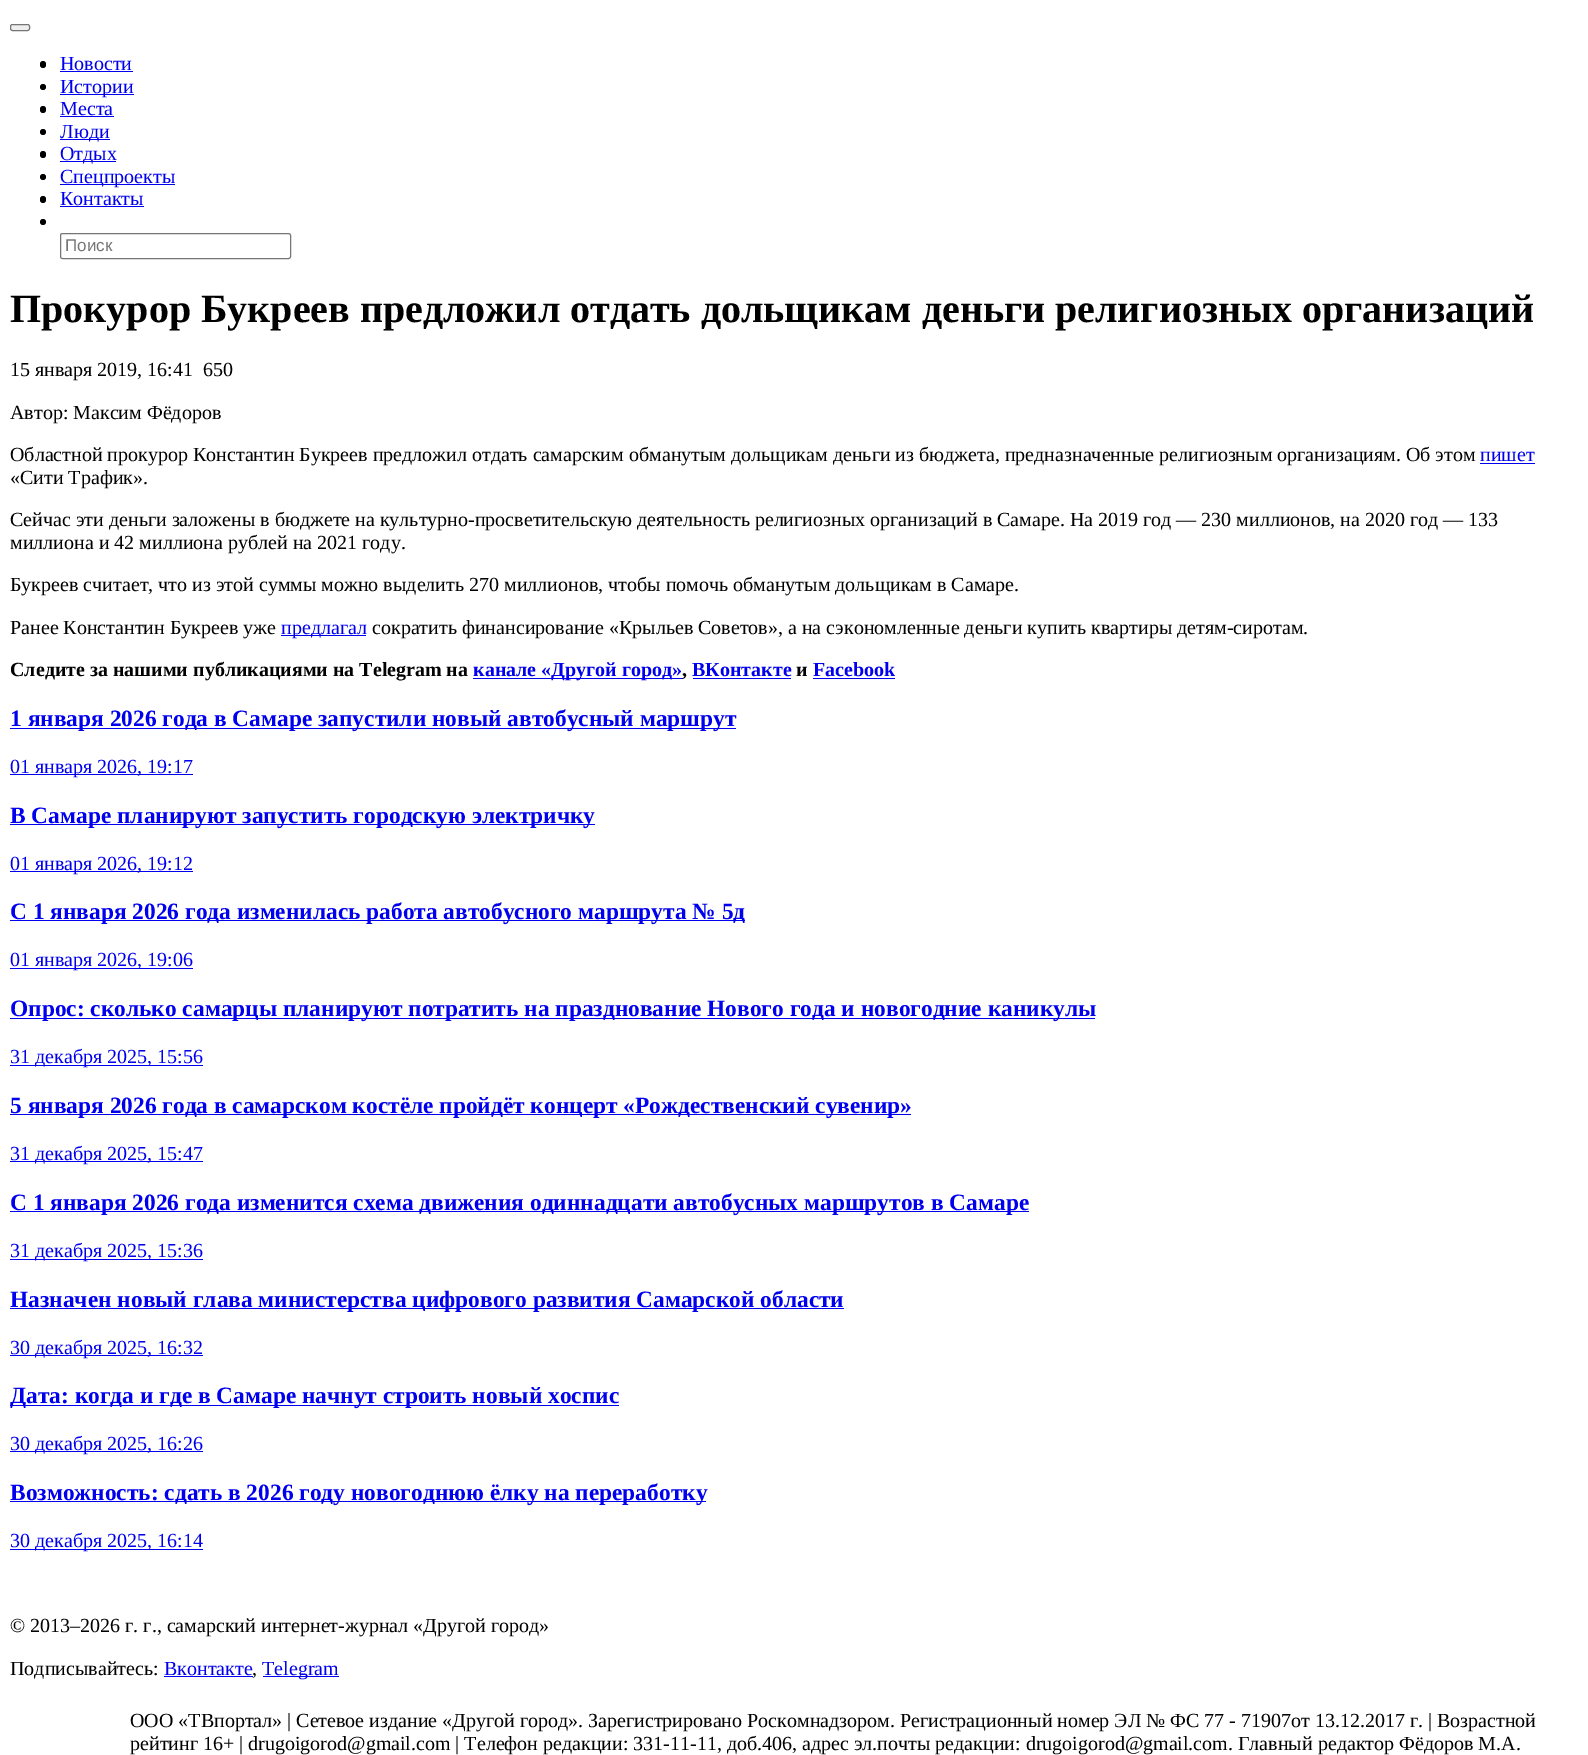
%!PS-Adobe-3.0
%%BoundingBox: 0 0 1588 1755
%%LanguageLevel: 3
%%Pages: 1
%%EndComments
%%BeginProlog
/f { fill } bind def
/S { stroke } bind def
/q { gsave } bind def
/Q { grestore } bind def
/fn { [ exch dup neg 0 0 3 -1 roll 0 0 ] selectfont } def
/tx { moveto show } def
/bx { rectfill } def
/ci { newpath 0 360 arc closepath } def
/rr { 5 dict begin { /r /h /w /y /x } { exch def } forall
  x r add y moveto x w add y 2 copy h add r arct x w add y h add x 1 index r arct
  x y h add x y r arct x y 2 copy exch w add exch r arct closepath end } def
%%EndProlog
%%BeginSetup
<< /PageSize [1588 1755] >> setpagedevice
%%EndSetup
%%Page: 1 1
0 1755 translate 1 -1 scale
4 setmiterlimit
1 setgray
0 0 1588 1755 bx
0.937 setgray
10.5 24.5 19 6 2 rr q f Q
0.463 setgray
S
0 setgray
40 61 6 7 3 rr f
/LiberationSerif-Regular 20 fn
0 0 0.933 setrgbcolor
(Новости) 60 70 tx
60 71 73 1 bx
0 setgray
43 87 3 ci f
0 0 0.933 setrgbcolor
60 94 74 1 bx
(Истории) 60 93 tx
0 setgray
40 106 6 7 3 rr f
0 0 0.933 setrgbcolor
(Места) 60 115 tx
60 116 54 1 bx
0 setgray
43 132 3 ci f
0 0 0.933 setrgbcolor
60 139 50 1 bx
(Люди) 60 138 tx
0 setgray
40 151 6 7 3 rr f
0 0 0.933 setrgbcolor
60 161 56 1 bx
(Отдых) 60 160 tx
0 setgray
43 177 3 ci f
0 0 0.933 setrgbcolor
60 184 115 1 bx
(Спецпроекты) 60 183 tx
0 setgray
40 196 6 7 3 rr f
0 0 0.933 setrgbcolor
(Контакты) 60 205 tx
60 206 84 1 bx
0 setgray
43 222 3 ci f
0.463 setgray
60.5 233.5 230 25 2 rr S
/LiberationSans-Regular 17 fn
0.459 setgray
(Поиск) 65 251 tx
/LiberationSerif-Bold 40 fn
0 setgray
(Прокурор Букреев предложил отдать дольщикам деньги религиозных организаций) 10 322 tx
/LiberationSerif-Regular 20 fn
(15 января 2019, 16:41) 10 376 tx
(650) 203 376 tx
(Автор: Максим Фёдоров) 10 419 tx
(Областной прокурор Константин Букреев предложил отдать самарским обманутым дольщикам деньги из бюджета, предназначенные религиозным организациям. Об этом) 10 461 tx
0 0 0.933 setrgbcolor
(пишет) 1480 461 tx
1480 463 55 1 bx
0 setgray
(«Сити Трафик».) 10 484 tx
(Сейчас эти деньги заложены в бюджете на культурно-просветительскую деятельность религиозных организаций в Самаре. На 2019 год — 230 миллионов, на 2020 год — 133) 10 526 tx
(миллиона и 42 миллиона рублей на 2021 году.) 10 549 tx
(Букреев считает, что из этой суммы можно выделить 270 миллионов, чтобы помочь обманутым дольщикам в Самаре.) 10 591 tx
(Ранее Константин Букреев уже) 10 634 tx
0 0 0.933 setrgbcolor
281 635 85 1 bx
(предлагал) 281 634 tx
0 setgray
(сократить финансирование «Крыльев Советов», а на сэкономленные деньги купить квартиры детям-сиротам.) 372 634 tx
/LiberationSerif-Bold 20 fn
(Следите за нашими публикациями на Telegram на) 10 676 tx
0 0 0.933 setrgbcolor
473 678 210 1 bx
(канале «Другой город») 473 676 tx
0 setgray
(,) 682 676 tx
0 0 0.933 setrgbcolor
693 678 98 1 bx
(ВКонтакте) 692 676 tx
0 setgray
(и) 796 676 tx
0 0 0.933 setrgbcolor
(Facebook) 813 676 tx
813 678 82 1 bx
10 728 726 1 bx
/LiberationSerif-Bold 23.4 fn
(1 января 2026 года в Самаре запустили новый автобусный маршрут) 10 726 tx
10 774 183 1 bx
/LiberationSerif-Regular 20 fn
(01 января 2026, 19:17) 10 773 tx
10 824 585 1 bx
/LiberationSerif-Bold 23.4 fn
(В Самаре планируют запустить городскую электричку) 10 823 tx
10 871 183 1 bx
/LiberationSerif-Regular 20 fn
(01 января 2026, 19:12) 10 870 tx
10 920 735 1 bx
/LiberationSerif-Bold 23.4 fn
(С 1 января 2026 года изменилась работа автобусного маршрута № 5д) 10 919 tx
10 968 183 1 bx
/LiberationSerif-Regular 20 fn
(01 января 2026, 19:06) 10 966 tx
10 1018 1085 1 bx
/LiberationSerif-Bold 23.4 fn
(Опрос: сколько самарцы планируют потратить на празднование Нового года и новогодние каникулы) 10 1016 tx
10 1065 193 1 bx
/LiberationSerif-Regular 20 fn
(31 декабря 2025, 15:56) 10 1063 tx
10 1114 901 1 bx
/LiberationSerif-Bold 23.4 fn
(5 января 2026 года в самарском костёле пройдёт концерт «Рождественский сувенир») 10 1113 tx
10 1161 193 1 bx
/LiberationSerif-Regular 20 fn
(31 декабря 2025, 15:47) 10 1160 tx
10 1211 1019 1 bx
/LiberationSerif-Bold 23.4 fn
(С 1 января 2026 года изменится схема движения одиннадцати автобусных маршрутов в Самаре) 10 1210 tx
10 1259 193 1 bx
/LiberationSerif-Regular 20 fn
(31 декабря 2025, 15:36) 10 1257 tx
10 1308 834 1 bx
/LiberationSerif-Bold 23.4 fn
(Назначен новый глава министерства цифрового развития Самарской области) 10 1307 tx
10 1355 193 1 bx
/LiberationSerif-Regular 20 fn
(30 декабря 2025, 16:32) 10 1354 tx
10 1405 609 1 bx
/LiberationSerif-Bold 23.4 fn
(Дата: когда и где в Самаре начнут строить новый хоспис) 10 1403 tx
10 1451 193 1 bx
/LiberationSerif-Regular 20 fn
(30 декабря 2025, 16:26) 10 1450 tx
10 1501 696 1 bx
/LiberationSerif-Bold 23.4 fn
(Возможность: сдать в 2026 году новогоднюю ёлку на переработку) 10 1500 tx
10 1549 193 1 bx
/LiberationSerif-Regular 20 fn
(30 декабря 2025, 16:14) 10 1547 tx
0 setgray
(© 2013–2026 г. г., самарский интернет-журнал «Другой город») 10 1632 tx
(Подписывайтесь:) 10 1675 tx
0 0 0.933 setrgbcolor
(Вконтакте) 164 1675 tx
164 1676 89 1 bx
0 setgray
(,) 252 1675 tx
0 0 0.933 setrgbcolor
263 1676 76 1 bx
(Telegram) 262 1675 tx
0 setgray
(ООО «ТВпортал» | Сетевое издание «Другой город». Зарегистрировано Роскомнадзором. Регистрационный номер ЭЛ № ФС 77 - 71907от 13.12.2017 г. | Возрастной) 130 1727 tx
(рейтинг 16+ | drugoigorod@gmail.com | Телефон редакции: 331-11-11, доб.406, адрес эл.почты редакции: drugoigorod@gmail.com. Главный редактор Фёдоров М.А.) 130 1750 tx
showpage
%%EOF
